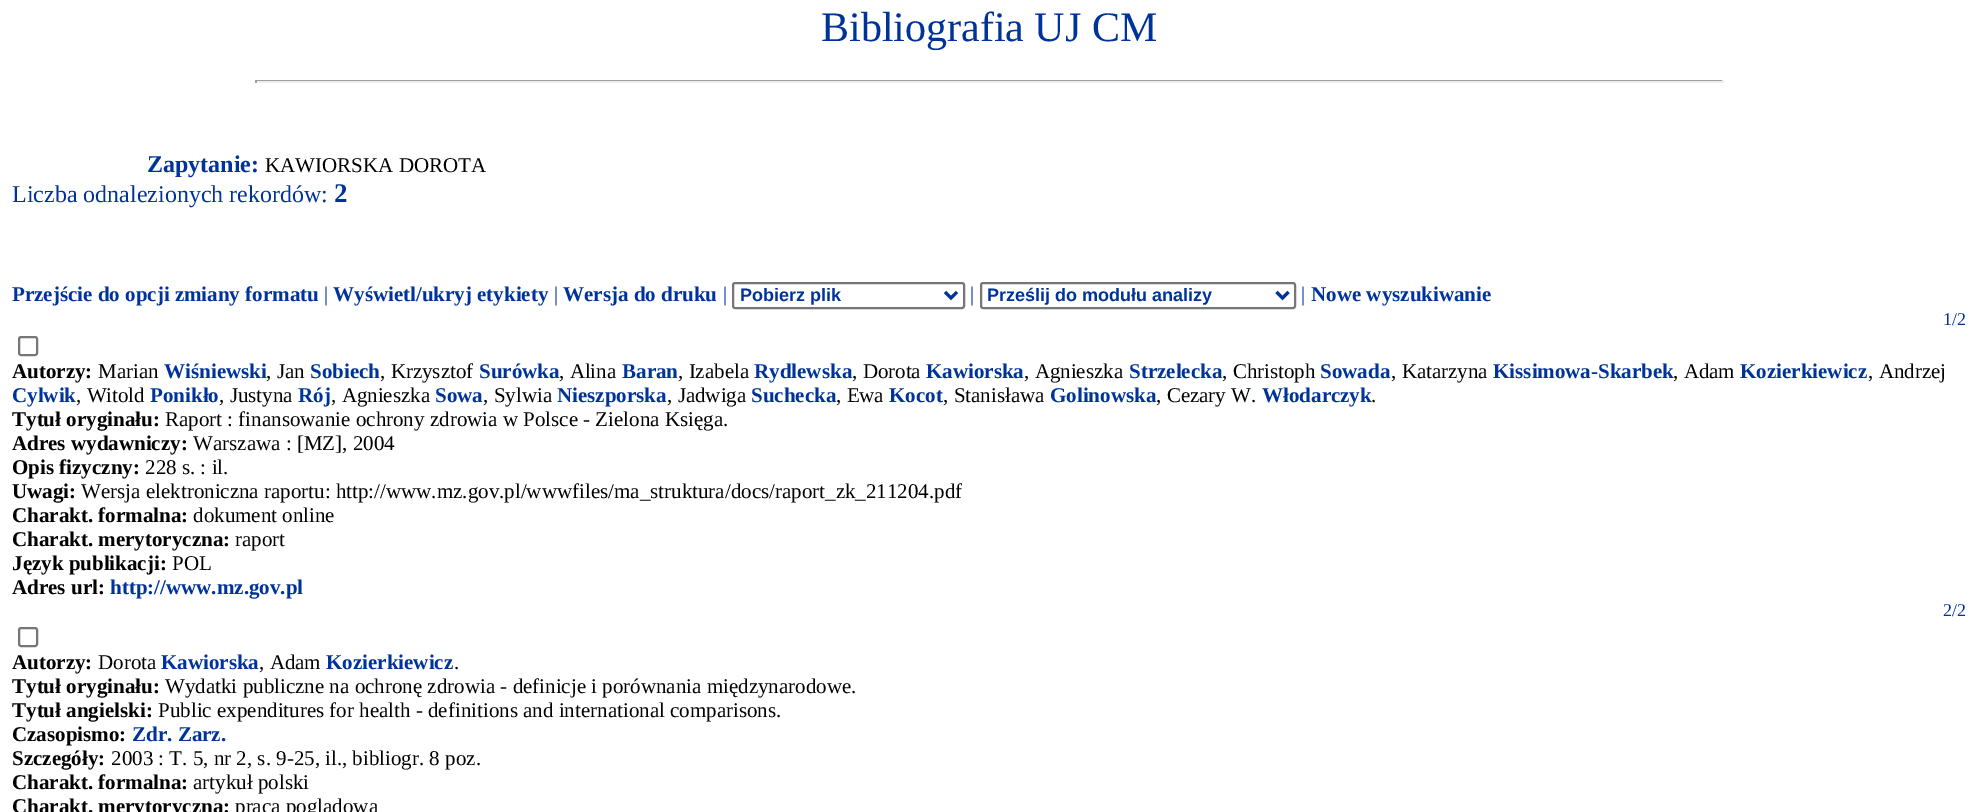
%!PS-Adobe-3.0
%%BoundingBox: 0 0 1978 812
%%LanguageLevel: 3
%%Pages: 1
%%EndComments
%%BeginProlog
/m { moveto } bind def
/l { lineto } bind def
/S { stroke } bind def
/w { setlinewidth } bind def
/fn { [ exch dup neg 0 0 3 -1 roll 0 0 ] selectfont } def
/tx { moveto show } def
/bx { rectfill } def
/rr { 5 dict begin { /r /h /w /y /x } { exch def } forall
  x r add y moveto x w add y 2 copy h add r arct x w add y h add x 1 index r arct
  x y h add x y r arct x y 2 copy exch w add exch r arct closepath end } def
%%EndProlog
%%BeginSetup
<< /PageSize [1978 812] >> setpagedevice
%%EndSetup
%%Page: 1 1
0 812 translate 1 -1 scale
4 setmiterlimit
1 setgray
0 0 1978 812 bx
/LiberationSerif-Regular 42 fn
0 0.2 0.6 setrgbcolor
(Bibliografia UJ CM) 821 41 tx
0.624 setgray
255 80 1469 1 bx
0.933 setgray
1722 80 2 3 bx
255 81 1469 2 bx
0.624 setgray
255 80 2 3 bx
/LiberationSerif-Bold 24 fn
0 0.2 0.6 setrgbcolor
(Zapytanie:) 147 172 tx
/LiberationSerif-Regular 21 fn
0 setgray
(KAWIORSKA DOROTA) 265 172 tx
/LiberationSerif-Regular 24 fn
0 0.2 0.6 setrgbcolor
(Liczba odnalezionych rekordów:) 12 202 tx
/LiberationSerif-Bold 27 fn
(2) 334 202 tx
/LiberationSerif-Bold 21 fn
(Przejście do opcji zmiany formatu) 12 301 tx
/LiberationSerif-Regular 21 fn
(|) 324 301 tx
/LiberationSerif-Bold 21 fn
(Wyświetl/ukryj etykiety) 333 301 tx
/LiberationSerif-Regular 21 fn
(|) 554 301 tx
/LiberationSerif-Bold 21 fn
(Wersja do druku) 563 301 tx
/LiberationSerif-Regular 21 fn
(|) 723 301 tx
0.463 setgray
2 w
733 283 231 25 2 rr S
0 0.2 0.6 setrgbcolor
3 w
945 292 m 951 298 l 957 292 l S
/LiberationSans-Bold 18 fn
(Pobierz plik) 740 301 tx
/LiberationSerif-Regular 21 fn
(|) 970 301 tx
0.463 setgray
2 w
981 283 314 25 2 rr S
0 0.2 0.6 setrgbcolor
3 w
1276.5 292 m 1282.5 298 l 1288.5 292 l S
/LiberationSans-Bold 18 fn
(Prześlij do modułu analizy) 987 301 tx
/LiberationSerif-Regular 21 fn
(|) 1301 301 tx
/LiberationSerif-Bold 21 fn
(Nowe wyszukiwanie) 1311 301 tx
/LiberationSerif-Regular 18 fn
(1/2) 1943 325 tx
0.463 setgray
2 w
19 337 18 18 2 rr S
/LiberationSerif-Bold 21 fn
0 setgray
(Autorzy:) 12 378 tx
/LiberationSerif-Regular 21 fn
(Marian) 98 378 tx
/LiberationSerif-Bold 21 fn
0 0.2 0.6 setrgbcolor
(Wiśniewski) 164 378 tx
/LiberationSerif-Regular 21 fn
0 setgray
(, Jan) 266 378 tx
/LiberationSerif-Bold 21 fn
0 0.2 0.6 setrgbcolor
(Sobiech) 310 378 tx
/LiberationSerif-Regular 21 fn
0 setgray
(, Krzysztof) 380 378 tx
/LiberationSerif-Bold 21 fn
0 0.2 0.6 setrgbcolor
(Surówka) 479 378 tx
/LiberationSerif-Regular 21 fn
0 setgray
(, Alina) 559 378 tx
/LiberationSerif-Bold 21 fn
0 0.2 0.6 setrgbcolor
(Baran) 622 378 tx
/LiberationSerif-Regular 21 fn
0 setgray
(, Izabela) 678 378 tx
/LiberationSerif-Bold 21 fn
0 0.2 0.6 setrgbcolor
(Rydlewska) 754 378 tx
/LiberationSerif-Regular 21 fn
0 setgray
(, Dorota) 852 378 tx
/LiberationSerif-Bold 21 fn
0 0.2 0.6 setrgbcolor
(Kawiorska) 926 378 tx
/LiberationSerif-Regular 21 fn
0 setgray
(, Agnieszka) 1024 378 tx
/LiberationSerif-Bold 21 fn
0 0.2 0.6 setrgbcolor
(Strzelecka) 1129 378 tx
/LiberationSerif-Regular 21 fn
0 setgray
(, Christoph) 1222 378 tx
/LiberationSerif-Bold 21 fn
0 0.2 0.6 setrgbcolor
(Sowada) 1320 378 tx
/LiberationSerif-Regular 21 fn
0 setgray
(, Katarzyna) 1391 378 tx
/LiberationSerif-Bold 21 fn
0 0.2 0.6 setrgbcolor
(Kissimowa-Skarbek) 1493 378 tx
/LiberationSerif-Regular 21 fn
0 setgray
(, Adam) 1673 378 tx
/LiberationSerif-Bold 21 fn
0 0.2 0.6 setrgbcolor
(Kozierkiewicz) 1740 378 tx
/LiberationSerif-Regular 21 fn
0 setgray
(, Andrzej) 1868 378 tx
/LiberationSerif-Bold 21 fn
0 0.2 0.6 setrgbcolor
(Cylwik) 12 402 tx
/LiberationSerif-Regular 21 fn
0 setgray
(, Witold) 76 402 tx
/LiberationSerif-Bold 21 fn
0 0.2 0.6 setrgbcolor
(Ponikło) 150 402 tx
/LiberationSerif-Regular 21 fn
0 setgray
(, Justyna) 219 402 tx
/LiberationSerif-Bold 21 fn
0 0.2 0.6 setrgbcolor
(Rój) 298 402 tx
/LiberationSerif-Regular 21 fn
0 setgray
(, Agnieszka) 331 402 tx
/LiberationSerif-Bold 21 fn
0 0.2 0.6 setrgbcolor
(Sowa) 435 402 tx
/LiberationSerif-Regular 21 fn
0 setgray
(, Sylwia) 483 402 tx
/LiberationSerif-Bold 21 fn
0 0.2 0.6 setrgbcolor
(Nieszporska) 557 402 tx
/LiberationSerif-Regular 21 fn
0 setgray
(, Jadwiga) 667 402 tx
/LiberationSerif-Bold 21 fn
0 0.2 0.6 setrgbcolor
(Suchecka) 751 402 tx
/LiberationSerif-Regular 21 fn
0 setgray
(, Ewa) 836 402 tx
/LiberationSerif-Bold 21 fn
0 0.2 0.6 setrgbcolor
(Kocot) 889 402 tx
/LiberationSerif-Regular 21 fn
0 setgray
(, Stanisława) 943 402 tx
/LiberationSerif-Bold 21 fn
0 0.2 0.6 setrgbcolor
(Golinowska) 1050 402 tx
/LiberationSerif-Regular 21 fn
0 setgray
(, Cezary W.) 1156 402 tx
/LiberationSerif-Bold 21 fn
0 0.2 0.6 setrgbcolor
(Włodarczyk) 1262 402 tx
/LiberationSerif-Regular 21 fn
0 setgray
(.) 1371 402 tx
/LiberationSerif-Bold 21 fn
(Tytuł oryginału:) 12 426 tx
/LiberationSerif-Regular 21 fn
(Raport : finansowanie ochrony zdrowia w Polsce - Zielona Księga.) 165 426 tx
/LiberationSerif-Bold 21 fn
(Adres wydawniczy:) 12 450 tx
/LiberationSerif-Regular 21 fn
(Warszawa : [MZ], 2004) 193 450 tx
/LiberationSerif-Bold 21 fn
(Opis fizyczny:) 12 474 tx
/LiberationSerif-Regular 21 fn
(228 s. : il.) 145 474 tx
/LiberationSerif-Bold 21 fn
(Uwagi:) 12 498 tx
/LiberationSerif-Regular 21 fn
(Wersja elektroniczna raportu: http://www.mz.gov.pl/wwwfiles/ma_struktura/docs/raport_zk_211204.pdf) 81 498 tx
/LiberationSerif-Bold 21 fn
(Charakt. formalna:) 12 522 tx
/LiberationSerif-Regular 21 fn
(dokument online) 193 522 tx
/LiberationSerif-Bold 21 fn
(Charakt. merytoryczna:) 12 546 tx
/LiberationSerif-Regular 21 fn
(raport) 235 546 tx
/LiberationSerif-Bold 21 fn
(Język publikacji:) 12 570 tx
/LiberationSerif-Regular 21 fn
(POL) 172 570 tx
/LiberationSerif-Bold 21 fn
(Adres url:) 12 594 tx
0 0.2 0.6 setrgbcolor
(http://www.mz.gov.pl) 110 594 tx
/LiberationSerif-Regular 18 fn
(2/2) 1943 616 tx
0.463 setgray
19 628 18 18 2 rr S
/LiberationSerif-Bold 21 fn
0 setgray
(Autorzy:) 12 669 tx
/LiberationSerif-Regular 21 fn
(Dorota) 98 669 tx
/LiberationSerif-Bold 21 fn
0 0.2 0.6 setrgbcolor
(Kawiorska) 161 669 tx
/LiberationSerif-Regular 21 fn
0 setgray
(, Adam) 259 669 tx
/LiberationSerif-Bold 21 fn
0 0.2 0.6 setrgbcolor
(Kozierkiewicz) 326 669 tx
/LiberationSerif-Regular 21 fn
0 setgray
(.) 454 669 tx
/LiberationSerif-Bold 21 fn
(Tytuł oryginału:) 12 693 tx
/LiberationSerif-Regular 21 fn
(Wydatki publiczne na ochronę zdrowia - definicje i porównania międzynarodowe.) 165 693 tx
/LiberationSerif-Bold 21 fn
(Tytuł angielski:) 12 717 tx
/LiberationSerif-Regular 21 fn
(Public expenditures for health - definitions and international comparisons.) 158 717 tx
/LiberationSerif-Bold 21 fn
(Czasopismo:) 12 741 tx
0 0.2 0.6 setrgbcolor
(Zdr. Zarz.) 132 741 tx
0 setgray
(Szczegóły:) 12 765 tx
/LiberationSerif-Regular 21 fn
(2003 : T. 5, nr 2, s. 9-25, il., bibliogr. 8 poz.) 111 765 tx
/LiberationSerif-Bold 21 fn
(Charakt. formalna:) 12 789 tx
/LiberationSerif-Regular 21 fn
(artykuł polski) 193 789 tx
/LiberationSerif-Bold 21 fn
(Charakt. merytoryczna:) 12 813 tx
/LiberationSerif-Regular 21 fn
(praca poglądowa) 235 813 tx
showpage
%%EOF
